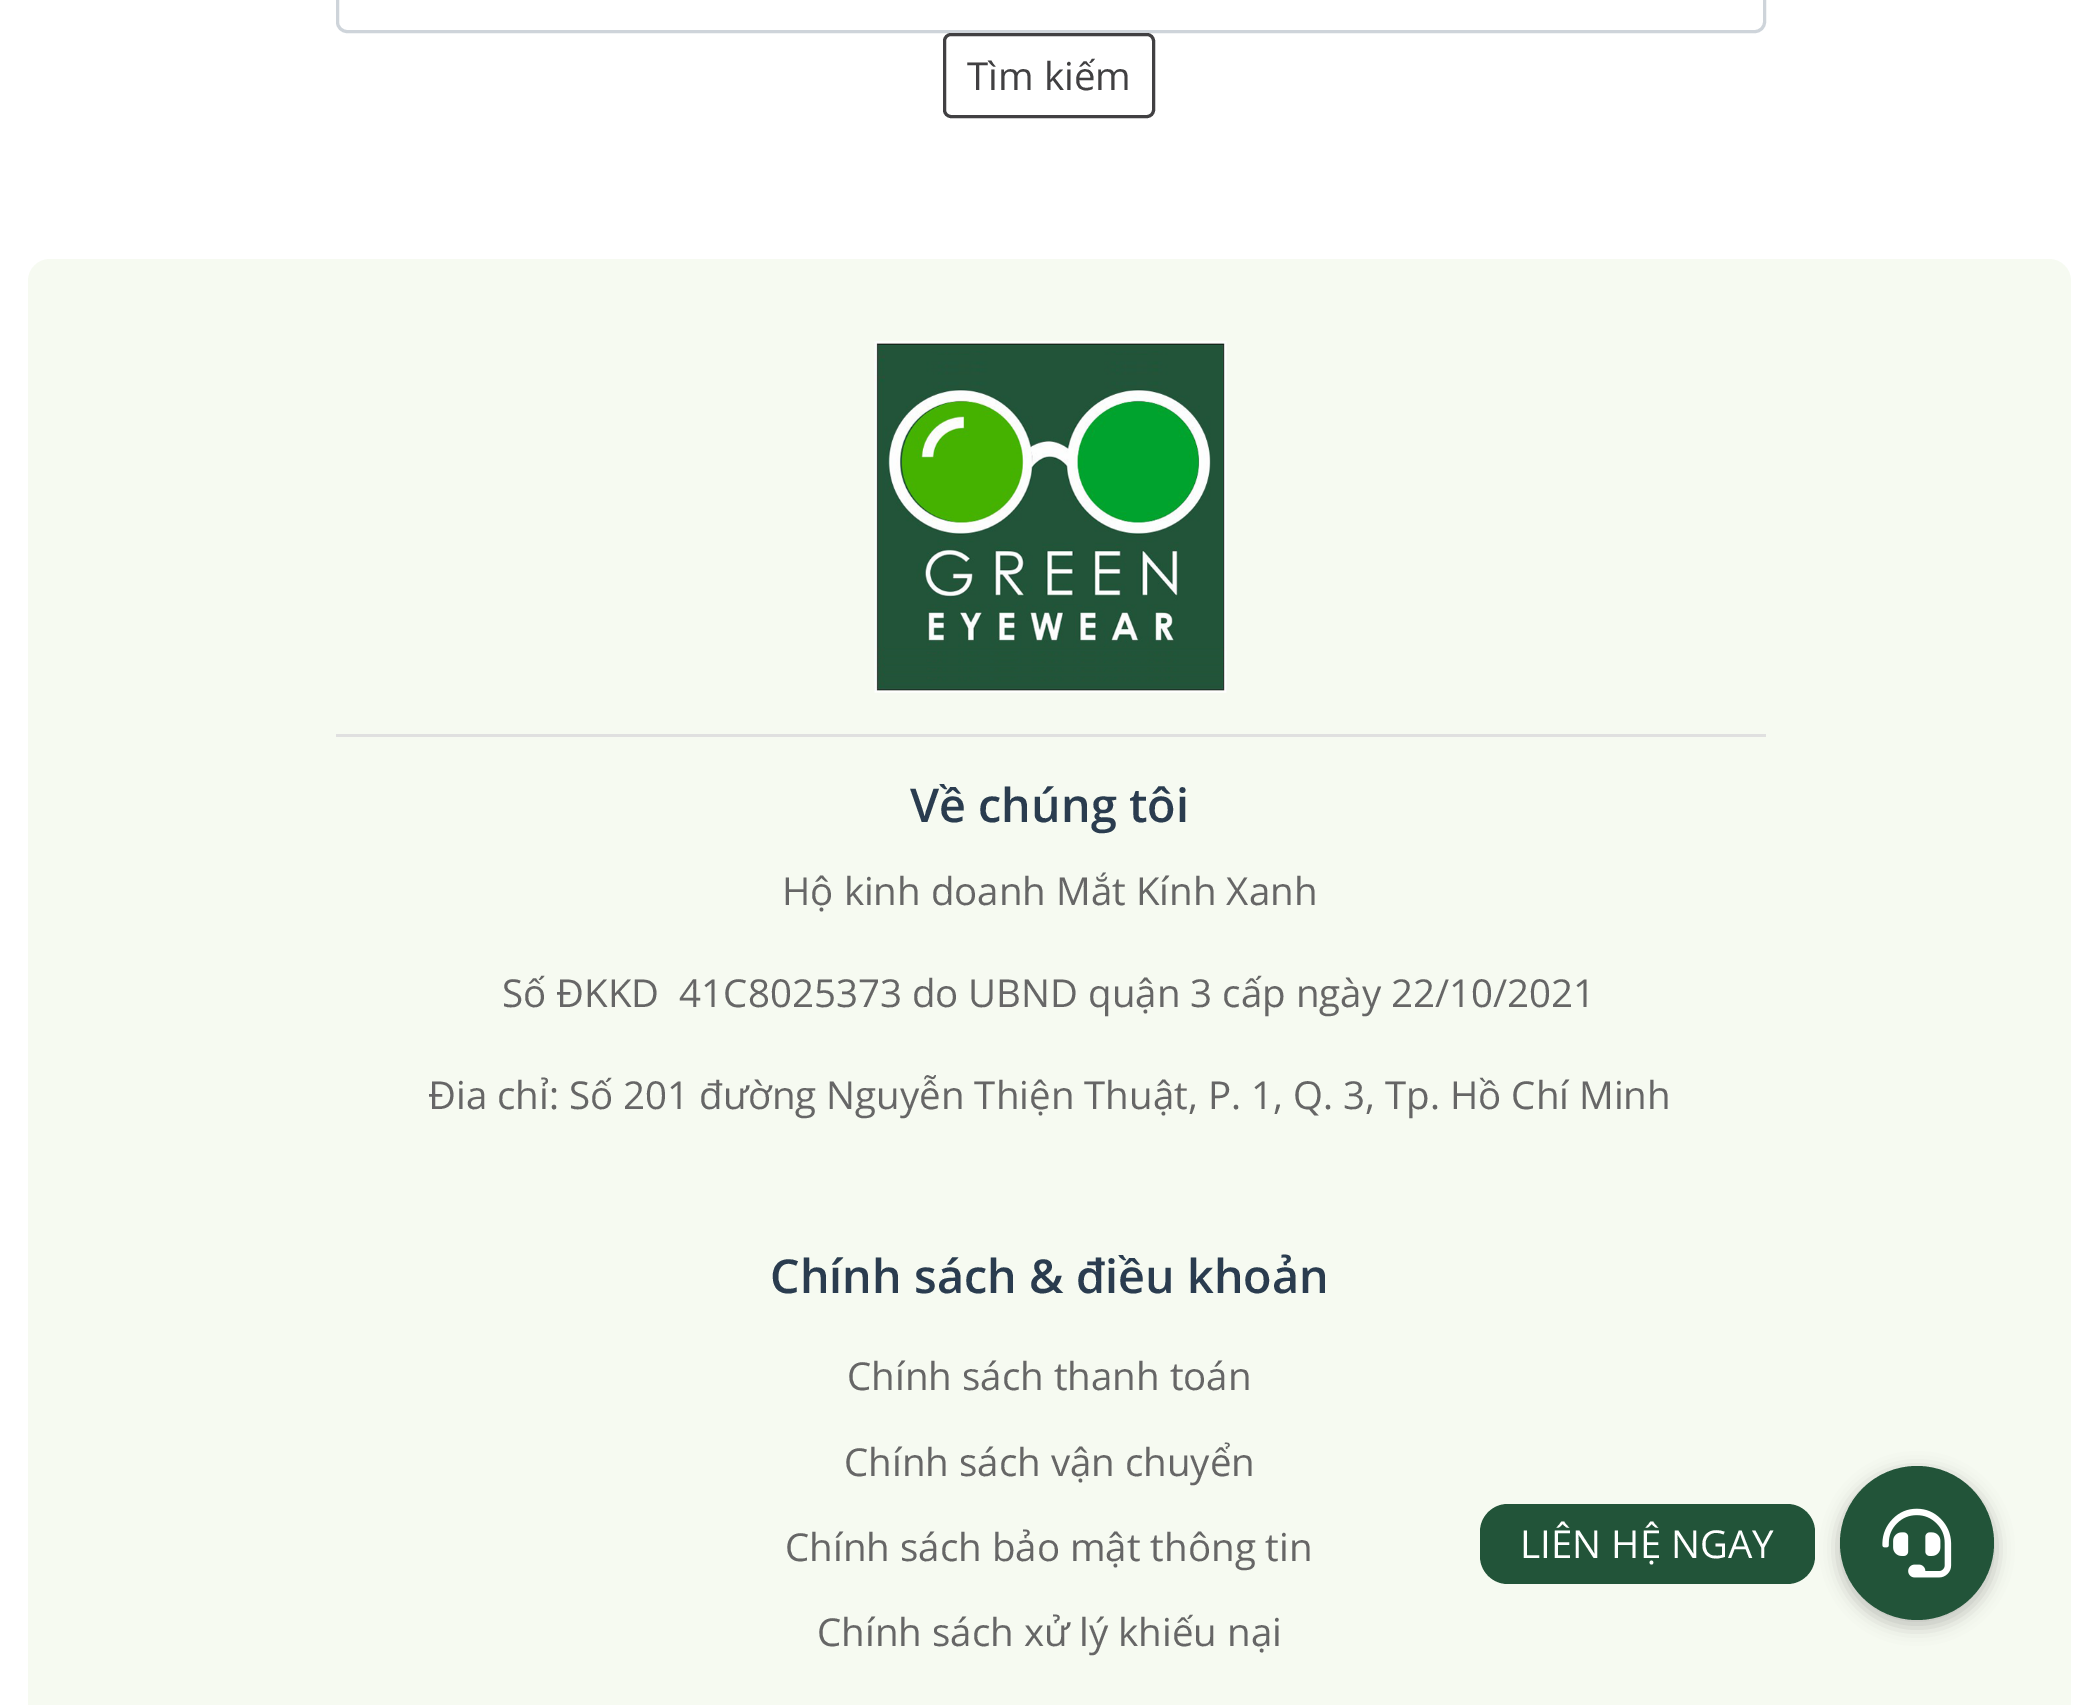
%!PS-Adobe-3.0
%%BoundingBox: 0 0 2098 1705
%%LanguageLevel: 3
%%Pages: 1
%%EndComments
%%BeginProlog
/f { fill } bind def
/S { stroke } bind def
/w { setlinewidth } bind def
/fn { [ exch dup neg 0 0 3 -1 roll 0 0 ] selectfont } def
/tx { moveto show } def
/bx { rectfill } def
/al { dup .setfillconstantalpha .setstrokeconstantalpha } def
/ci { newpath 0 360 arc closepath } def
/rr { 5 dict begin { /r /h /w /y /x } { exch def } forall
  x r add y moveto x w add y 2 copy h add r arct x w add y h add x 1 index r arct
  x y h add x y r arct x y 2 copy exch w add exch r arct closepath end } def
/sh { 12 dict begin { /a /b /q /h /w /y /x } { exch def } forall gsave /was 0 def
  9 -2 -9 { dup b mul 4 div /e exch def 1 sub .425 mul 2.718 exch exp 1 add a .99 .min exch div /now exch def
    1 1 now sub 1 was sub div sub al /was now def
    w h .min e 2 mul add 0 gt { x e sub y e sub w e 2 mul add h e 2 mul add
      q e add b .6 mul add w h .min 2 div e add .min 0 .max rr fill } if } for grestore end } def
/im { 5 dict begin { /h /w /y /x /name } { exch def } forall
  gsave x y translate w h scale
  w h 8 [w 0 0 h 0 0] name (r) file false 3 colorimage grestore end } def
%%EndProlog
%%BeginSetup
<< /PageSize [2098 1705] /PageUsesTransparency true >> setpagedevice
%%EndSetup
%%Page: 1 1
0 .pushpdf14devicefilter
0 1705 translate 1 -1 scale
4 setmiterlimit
1 setgray
0 0 2098 1705 bx
0.808 0.831 0.855 setrgbcolor
3 w
337.5 -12.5 1427 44 9.5 rr S
0.255 0.251 0.259 setrgbcolor
944.5 34.5 209 82 6.5 rr S
/OpenSans-Regular 38.5 fn
(Tìm kiếm) 967 90 tx
0.965 0.98 0.945 setrgbcolor
28 259 2043 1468 22 rr f
0.878 setgray
336 734 1430 3 bx
(image0.raw) 874 341 353 352 im
/OpenSans-SemiBold 46.75 fn
0.165 0.235 0.31 setrgbcolor
(Về chúng tôi) 910 822 tx
/OpenSans-Regular 38.5 fn
0.4 setgray
(Hộ kinh doanh Mắt Kính Xanh) 782 905 tx
(Số ĐKKD  41C8025373 do UBND quận 3 cấp ngày 22/10/2021) 502 1007 tx
(Đia chỉ: Số 201 đường Nguyễn Thiện Thuật, P. 1, Q. 3, Tp. Hồ Chí Minh) 428 1109 tx
/OpenSans-SemiBold 46.75 fn
0.165 0.235 0.31 setrgbcolor
(Chính sách & điều khoản) 770 1293 tx
/OpenSans-Regular 38.5 fn
0.4 setgray
(Chính sách thanh toán) 847 1390 tx
(Chính sách vận chuyển) 844 1476 tx
(Chính sách bảo mật thông tin) 785 1561 tx
(Chính sách xử lý khiếu nại) 817 1646 tx
0 setgray
1837 1469 160 159 79.5 8 0.2 sh
0.133 0.329 0.224 setrgbcolor
1917 1543 77 ci f
1480 1504 335 80 28 rr f
1 setgray
(LIÊN HỆ NGAY) 1520 1558 tx
(image1.raw) 1882 1508 70 70 im
.poppdf14devicefilter showpage
%%EOF
